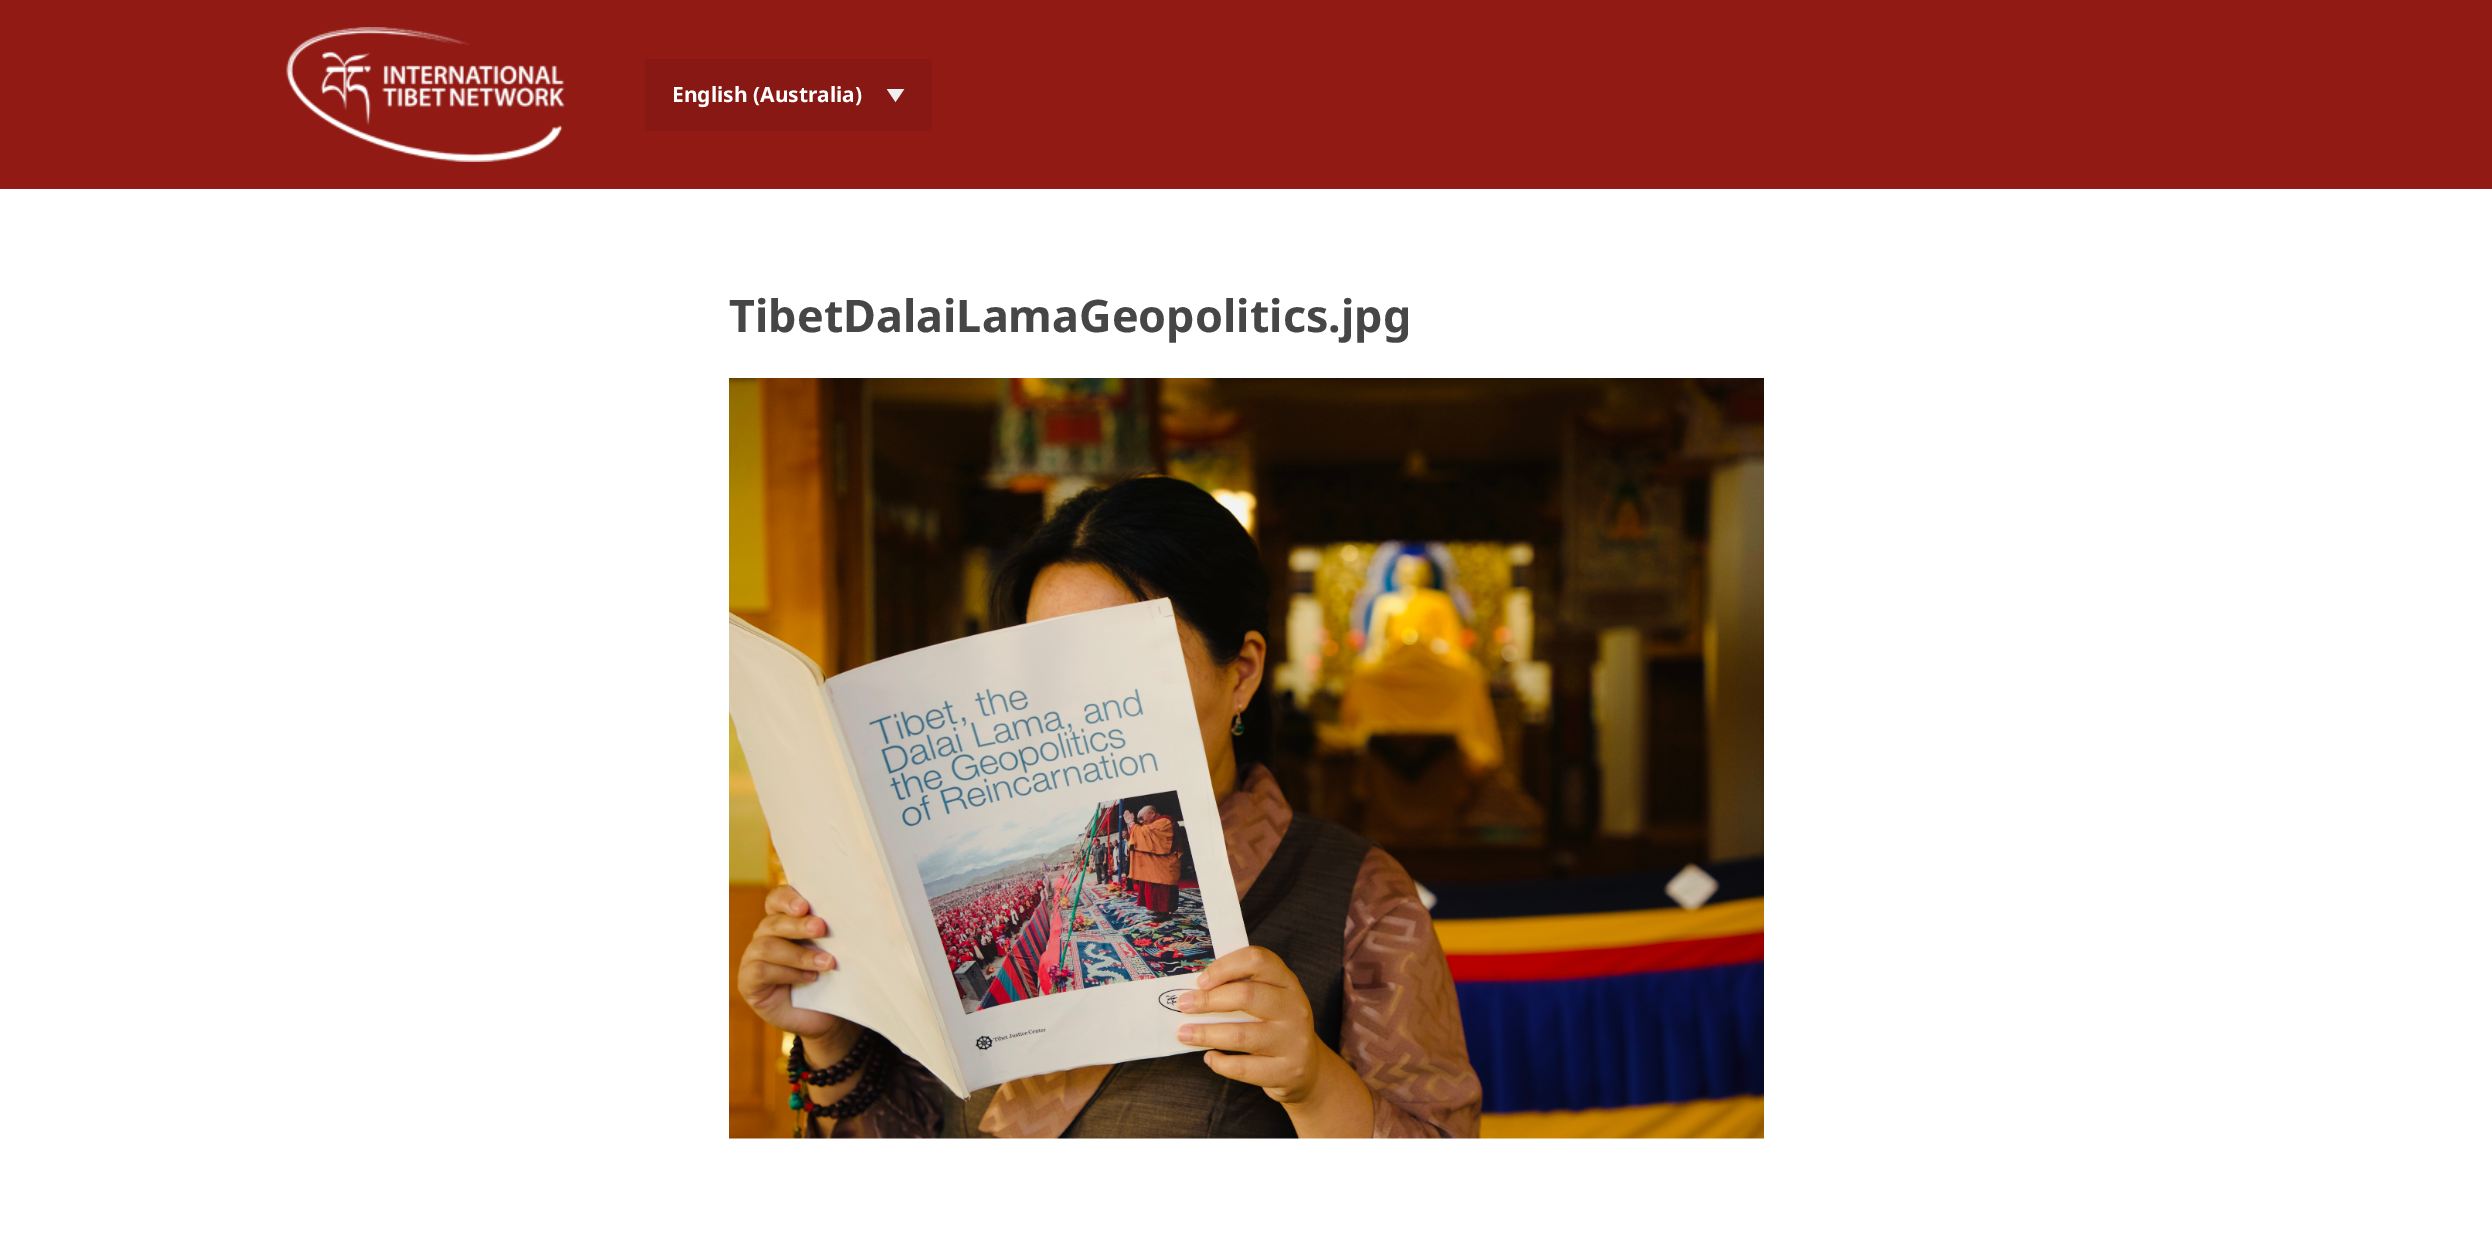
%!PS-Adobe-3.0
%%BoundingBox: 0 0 2492 1250
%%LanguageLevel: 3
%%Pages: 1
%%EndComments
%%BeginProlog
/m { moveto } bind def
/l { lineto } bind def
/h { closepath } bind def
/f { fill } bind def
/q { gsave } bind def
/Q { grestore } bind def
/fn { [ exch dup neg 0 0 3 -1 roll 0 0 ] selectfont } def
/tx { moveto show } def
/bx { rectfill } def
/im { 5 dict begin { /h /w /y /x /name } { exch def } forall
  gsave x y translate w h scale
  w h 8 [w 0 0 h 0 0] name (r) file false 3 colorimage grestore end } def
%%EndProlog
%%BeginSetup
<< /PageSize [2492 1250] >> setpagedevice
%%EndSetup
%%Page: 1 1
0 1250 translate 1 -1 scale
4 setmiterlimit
1 setgray
0 0 2492 1250 bx
0.573 0.102 0.078 setrgbcolor
0 0 2492 189 bx
(image0.raw) 286 27 279 135 im
0.533 0.094 0.075 setrgbcolor
645 59 287 72 bx
/NotoSans-Bold 21 fn
1 setgray
(English \(Australia\)) 672 102 tx
q
887 89 18 13 rectclip
0.937 setgray
886.5 88.5 m 904.5 88.5 l 895.5 102 l h f
Q
/NotoSans-Bold 44.9 fn
0.275 setgray
(TibetDalaiLamaGeopolitics.jpg) 729 332 tx
(image1.raw) 729 378 1035 761 im
showpage
%%EOF
